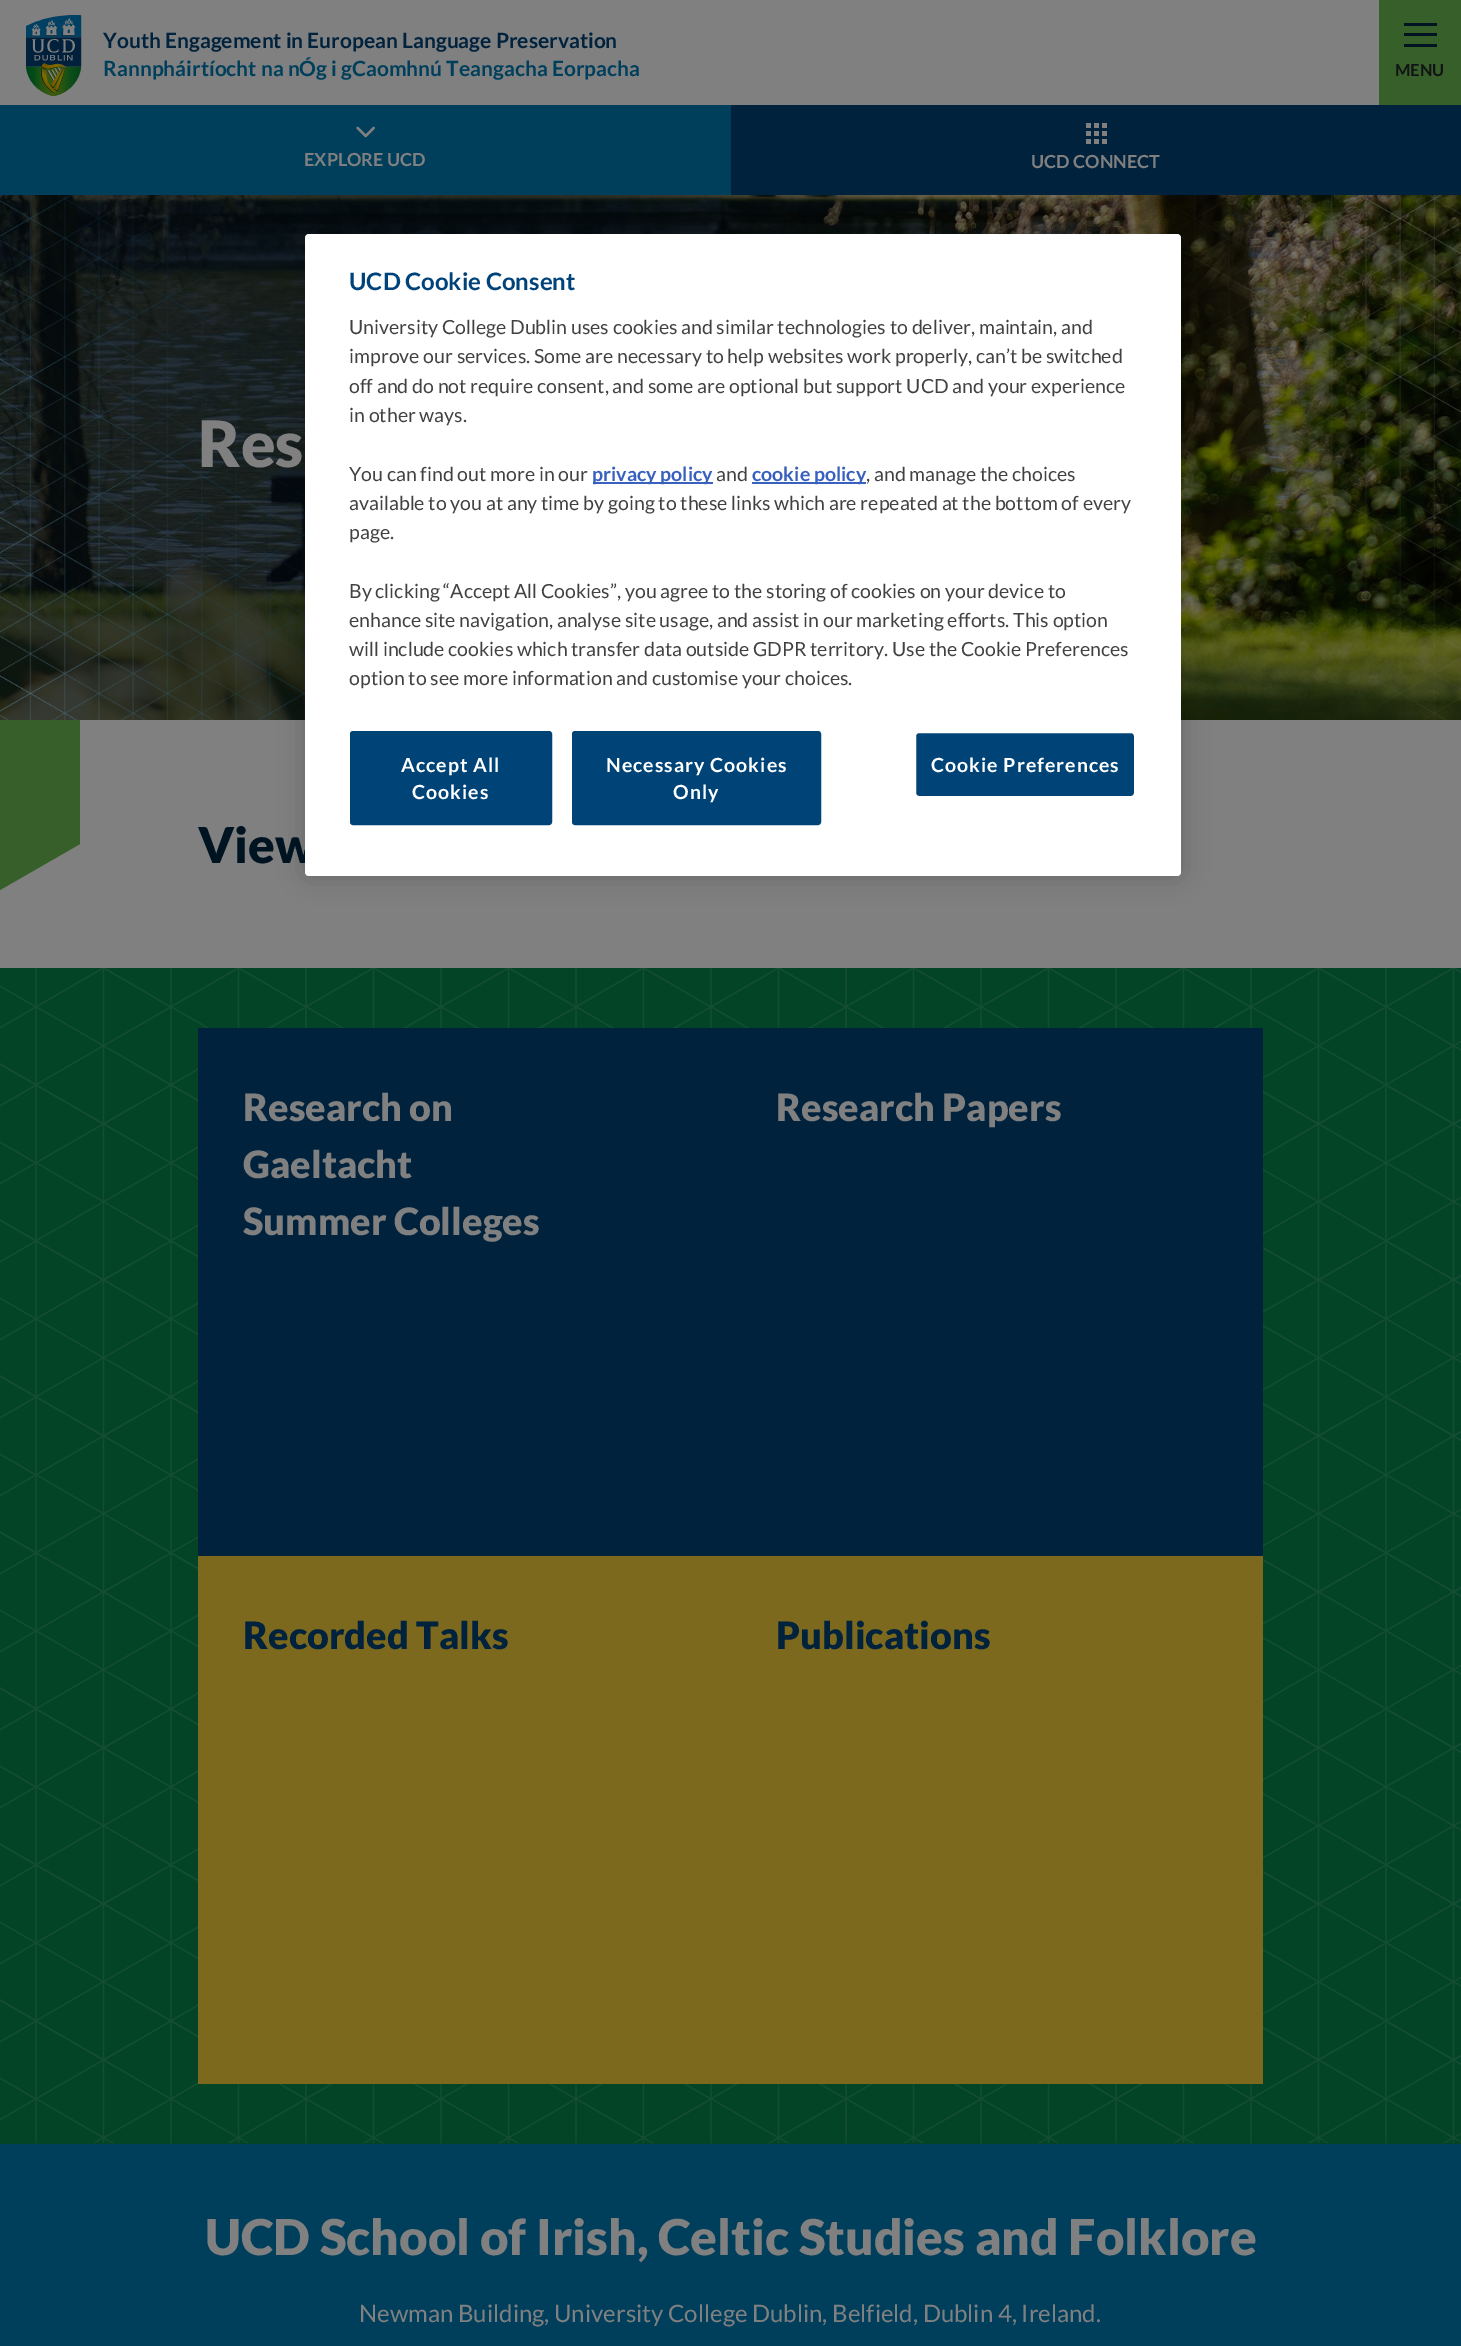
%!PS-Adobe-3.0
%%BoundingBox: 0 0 1461 2346
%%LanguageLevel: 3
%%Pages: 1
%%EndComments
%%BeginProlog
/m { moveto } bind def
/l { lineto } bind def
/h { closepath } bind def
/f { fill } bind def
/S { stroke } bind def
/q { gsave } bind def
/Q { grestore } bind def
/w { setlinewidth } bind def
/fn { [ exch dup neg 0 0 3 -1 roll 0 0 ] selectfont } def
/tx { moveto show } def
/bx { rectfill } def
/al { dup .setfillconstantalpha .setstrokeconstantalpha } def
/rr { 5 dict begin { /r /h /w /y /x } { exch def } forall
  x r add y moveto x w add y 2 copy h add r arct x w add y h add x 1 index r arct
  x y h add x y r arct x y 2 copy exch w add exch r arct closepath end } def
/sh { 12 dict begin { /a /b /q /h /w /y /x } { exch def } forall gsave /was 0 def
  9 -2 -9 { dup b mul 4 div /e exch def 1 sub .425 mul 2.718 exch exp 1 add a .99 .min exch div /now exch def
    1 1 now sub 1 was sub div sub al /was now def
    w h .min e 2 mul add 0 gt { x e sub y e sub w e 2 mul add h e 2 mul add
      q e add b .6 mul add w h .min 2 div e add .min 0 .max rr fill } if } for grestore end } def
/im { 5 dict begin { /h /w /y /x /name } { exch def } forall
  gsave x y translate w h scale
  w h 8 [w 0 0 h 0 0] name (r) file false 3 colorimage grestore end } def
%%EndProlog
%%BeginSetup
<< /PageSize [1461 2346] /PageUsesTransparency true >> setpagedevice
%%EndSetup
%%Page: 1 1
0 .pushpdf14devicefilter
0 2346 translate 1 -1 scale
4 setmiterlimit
0.502 setgray
0 0 1461 2346 bx
(image0.raw) 26 15 56 82 im
/Lato-Bold 21 fn
0 0.133 0.235 setrgbcolor
(Youth Engagement in European Language Preservation) 103 48 tx
0 0.247 0.361 setrgbcolor
(Rannpháirtíocht na nÓg i gCaomhnú Teangacha Eorpacha) 103 76 tx
0.212 0.373 0.161 setrgbcolor
1379 0 82 105 bx
0 0.075 0.129 setrgbcolor
1404 23 33 3 bx
1404 33 33 3 bx
1404 44 33 3 bx
/Lato-Bold 16.5 fn
0.067 0.075 0.082 setrgbcolor
(MENU) 1395 76 tx
0 0.247 0.361 setrgbcolor
0 105 731 90 bx
(image1.raw) 356 126 19 12 im
/Lato-Bold 18 fn
0.502 setgray
(EXPLORE UCD) 304 166 tx
0 0.133 0.235 setrgbcolor
731 105 730 90 bx
(image2.raw) 1086 123 21 21 im
0.502 setgray
(UCD CONNECT) 1031 168 tx
(image3.raw) 0 195 1461 525 im
(image4.raw) 0 195 1461 525 im
0 setgray
305 234 876 642 4 13.5 0.2 sh
/Lato-Black 49.4 fn
0 0.075 0.129 setrgbcolor
(View) 198 863 tx
1 setgray
305 234 876 642 4 rr f
/Lato-Bold 24 fn
0 0.259 0.478 setrgbcolor
(UCD Cookie Consent) 349 290 tx
/Lato-Regular 19.5 fn
0.255 setgray
(University College Dublin uses cookies and similar technologies to deliver, maintain, and) 349 334 tx
(improve our services. Some are necessary to help websites work properly, can’t be switched) 349 363 tx
(off and do not require consent, and some are optional but support UCD and your experience) 349 393 tx
(in other ways.) 349 422 tx
(You can find out more in our) 349 481 tx
0.22 0.376 0.745 setrgbcolor
593 482 120 2 bx
/Lato-Bold 19.5 fn
(privacy policy) 592 481 tx
/Lato-Regular 19.5 fn
0.255 setgray
(and) 716 481 tx
0.22 0.376 0.745 setrgbcolor
752 482 114 2 bx
/Lato-Bold 19.5 fn
(cookie policy) 752 481 tx
/Lato-Regular 19.5 fn
0.255 setgray
(, and manage the choices) 866 481 tx
(available to you at any time by going to these links which are repeated at the bottom of every) 349 510 tx
(page.) 349 539 tx
(By clicking “Accept All Cookies”, you agree to the storing of cookies on your device to) 349 598 tx
(enhance site navigation, analyse site usage, and assist in our marketing efforts.) 349 627 tx
(This option) 1013 627 tx
(will include cookies which transfer data outside GDPR territory.) 349 656 tx
(Use the Cookie Preferences) 892 656 tx
(option to see more information and customise your choices.) 349 685 tx
0 0.263 0.467 setrgbcolor
351 732 200 92 2 rr q f Q
2 w
S
/Lato-Bold 19.5 fn
1 setgray
401 772 m 1 0 (Accept All) ashow
412 799 m 1 0 (Cookies) ashow
0 0.263 0.467 setrgbcolor
573 732 247 92 2 rr q f Q
S
1 setgray
606 772 m 1 0 (Necessary Cookies) ashow
673 799 m 1 0 (Only) ashow
0 0.263 0.467 setrgbcolor
915 732 220 65 4 rr q f Q
1 setgray
S
931 772 m 1 0 (Cookie Preferences) ashow
/Lato-Black 64 fn
0.502 setgray
(Res) 198 467 tx
0.212 0.373 0.161 setrgbcolor
80 844 m 0 890 l 0 720 l 80 720 l h f
0.008 0.267 0.145 setrgbcolor
0 968 1461 1176 bx
(image5.raw) 0 968 1461 1176 im
0 0.133 0.235 setrgbcolor
198 1028 1065 528 bx
/Lato-Black 37.75 fn
0.502 setgray
(Research on) 243 1121 tx
(Gaeltacht) 243 1178 tx
(Summer Colleges) 243 1235 tx
(Research Papers) 776 1121 tx
0.49 0.412 0.114 setrgbcolor
198 1556 1065 528 bx
0 0.133 0.235 setrgbcolor
(Recorded Talks) 243 1649 tx
(Publications) 776 1649 tx
0 0.247 0.361 setrgbcolor
0 2144 1461 202 bx
/Lato-Black 49.4 fn
0.502 setgray
(UCD School of Irish, Celtic Studies and Folklore) 205 2255 tx
/Lato-Regular 24 fn
(Newman Building, University College Dublin, Belfield, Dublin 4, Ireland.) 359 2322 tx
.poppdf14devicefilter showpage
%%EOF
